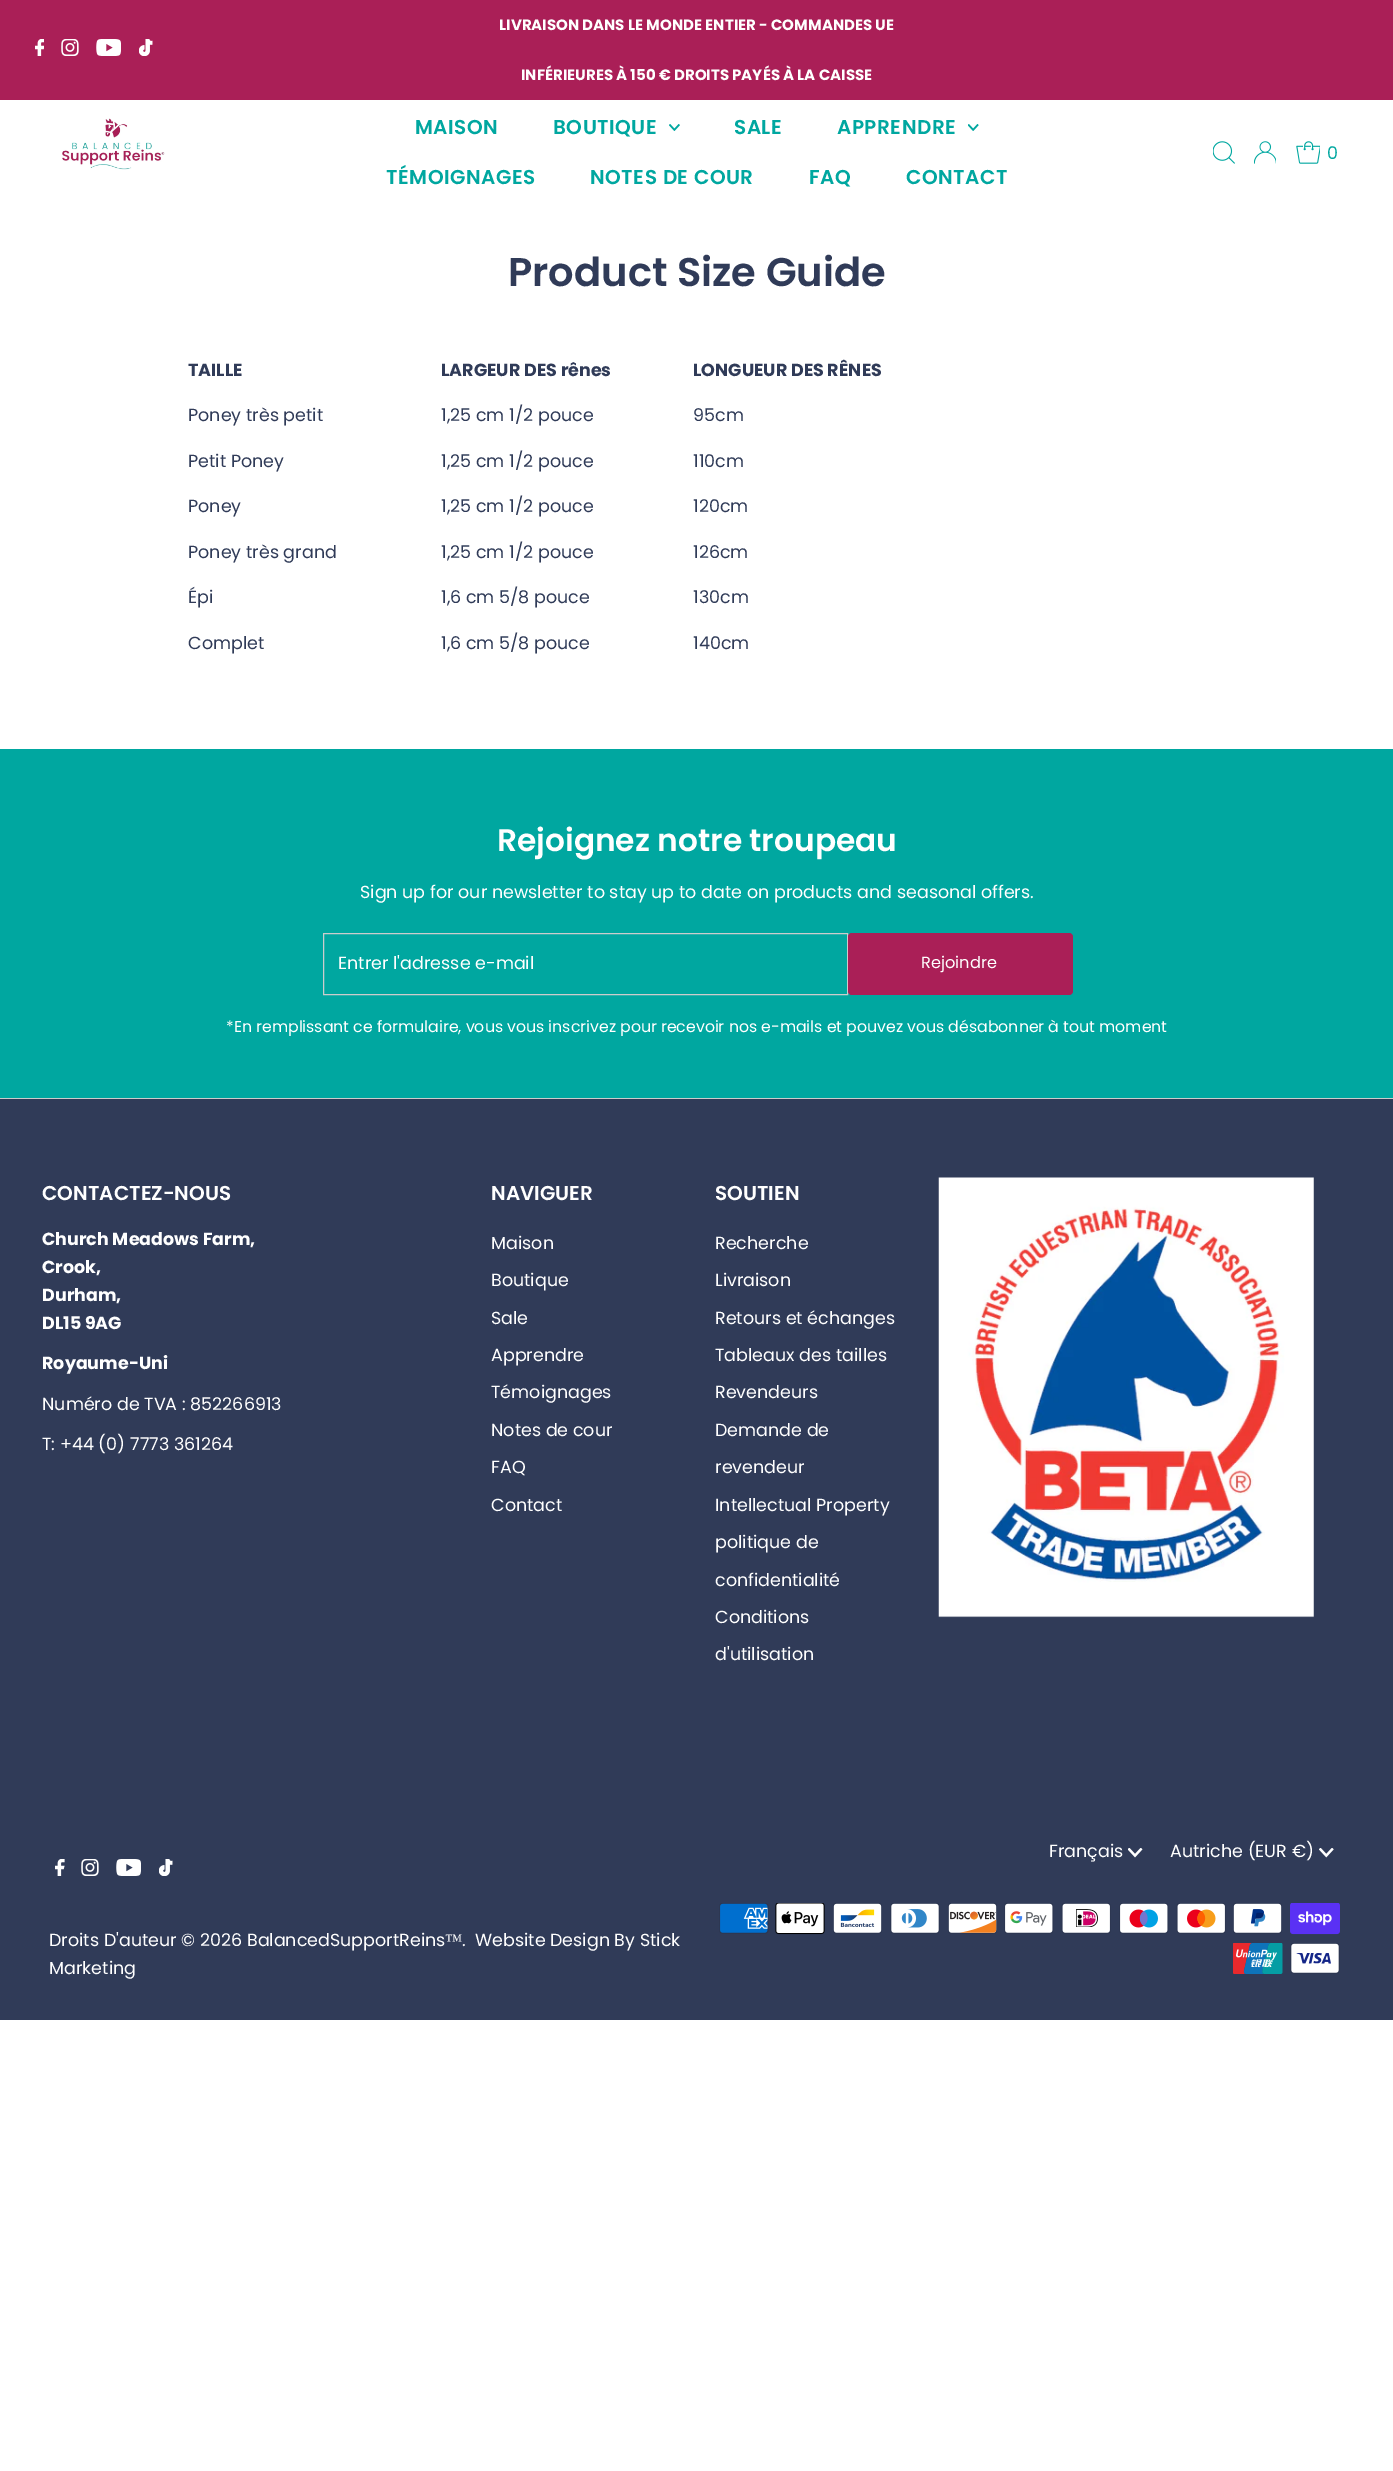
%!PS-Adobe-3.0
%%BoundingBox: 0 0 1393 2471
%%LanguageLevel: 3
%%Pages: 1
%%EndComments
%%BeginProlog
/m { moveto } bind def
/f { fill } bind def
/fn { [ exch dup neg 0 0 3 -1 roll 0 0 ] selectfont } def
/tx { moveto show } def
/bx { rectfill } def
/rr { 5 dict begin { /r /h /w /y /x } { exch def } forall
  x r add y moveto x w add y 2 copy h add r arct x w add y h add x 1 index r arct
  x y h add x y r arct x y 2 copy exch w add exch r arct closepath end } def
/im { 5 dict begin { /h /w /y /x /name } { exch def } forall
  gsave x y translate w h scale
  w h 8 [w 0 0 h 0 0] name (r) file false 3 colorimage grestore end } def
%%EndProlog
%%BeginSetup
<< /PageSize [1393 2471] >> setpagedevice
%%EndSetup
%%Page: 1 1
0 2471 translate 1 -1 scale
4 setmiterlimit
1 setgray
0 0 1393 2471 bx
0.667 0.122 0.341 setrgbcolor
0 0 1393 100 bx
(image0.raw) 35 39 9 17 im
(image1.raw) 61 39 18 17 im
(image2.raw) 96 39 25 17 im
(image3.raw) 139 39 14 17 im
/Poppins-Bold 15 fn
1 setgray
(LIVRAISON DANS LE MONDE ENTIER - COMMANDES UE) 499 30 tx
(INFÉRIEURES À 150 € DROITS PAYÉS À LA CAISSE) 521 80 tx
(image4.raw) 62 118 103 52 im
/Poppins-SemiBold 20 fn
0 0.655 0.627 setrgbcolor
415 134 m 0.5 0 (MAISON) ashow
553 134 m 0.5 0 (BOUTIQUE) ashow
(image5.raw) 669 124 11 7 im
734 134 m 0.5 0 (SALE) ashow
837 134 m 0.5 0 (APPRENDRE) ashow
(image6.raw) 968 124 11 7 im
386 184 m 0.5 0 (TÉMOIGNAGES) ashow
590 184 m 0.5 0 (NOTES DE COUR) ashow
809 184 m 0.5 0 (FAQ) ashow
906 184 m 0.5 0 (CONTACT) ashow
(image7.raw) 1213 141 22 23 im
(image8.raw) 1254 141 22 23 im
(image9.raw) 1296 141 24 23 im
/Poppins-Regular 17.5 fn
(0) 1327 159 tx
/Poppins-SemiBold 40 fn
0.188 0.231 0.345 setrgbcolor
(Product Size Guide) 508 286 tx
/Poppins-Bold 17.5 fn
(TAILLE) 188 376 tx
(LARGEUR DES rênes) 441 376 tx
(LONGUEUR DES RÊNES) 693 376 tx
/Poppins-Regular 17.5 fn
(Poney très petit) 188 421 tx
(1,25 cm 1/2 pouce) 441 421 tx
(95cm) 693 421 tx
(Petit Poney) 188 467 tx
(1,25 cm 1/2 pouce) 441 467 tx
(110cm) 693 467 tx
(Poney) 188 512 tx
(1,25 cm 1/2 pouce) 441 512 tx
(120cm) 693 512 tx
(Poney très grand) 188 558 tx
(1,25 cm 1/2 pouce) 441 558 tx
(126cm) 693 558 tx
(Épi) 188 603 tx
(1,6 cm 5/8 pouce) 441 603 tx
(130cm) 693 603 tx
(Complet) 188 649 tx
(1,6 cm 5/8 pouce) 441 649 tx
(140cm) 693 649 tx
0 0.655 0.627 setrgbcolor
0 749 1393 349 bx
/Poppins-SemiBold 31.25 fn
1 setgray
(Rejoignez notre troupeau) 497 851 tx
/Poppins-Regular 17.5 fn
(Sign up for our newsletter to stay up to date on products and seasonal offers.) 360 898 tx
0.8 setgray
323.5 933.5 524 61 rectstroke
1 setgray
(Entrer l'adresse e-mail) 338 969 tx
0.667 0.122 0.341 setrgbcolor
848 933 225 62 4 rr f
/Poppins-Regular 16.25 fn
1 setgray
(Rejoindre) 921 968 tx
/Poppins-Regular 15.75 fn
(*En remplissant ce formulaire, vous vous inscrivez pour recevoir nos e-mails et pouvez vous désabonner à tout moment) 226 1032 tx
0.188 0.231 0.345 setrgbcolor
0 1099 1393 921 bx
0.8 setgray
0 1098 1393 1 bx
/Poppins-SemiBold 20 fn
1 setgray
(CONTACTEZ-NOUS) 42 1200 tx
/Poppins-Bold 17.5 fn
(Church Meadows Farm,) 42 1245 tx
(Crook,) 42 1273 tx
(Durham,) 42 1301 tx
(DL15 9AG) 42 1329 tx
(Royaume-Uni) 42 1369 tx
/Poppins-Regular 17.5 fn
(Numéro de TVA : 852266913) 42 1410 tx
(T: +44 \(0\) 7773 361264) 42 1450 tx
/Poppins-SemiBold 20 fn
(NAVIGUER) 491 1200 tx
/Poppins-Regular 17.5 fn
(Maison) 491 1249 tx
(Boutique) 491 1286 tx
(Sale) 491 1324 tx
(Apprendre) 491 1361 tx
(Témoignages) 491 1398 tx
(Notes de cour) 491 1436 tx
(FAQ) 491 1473 tx
(Contact) 491 1511 tx
/Poppins-SemiBold 20 fn
(SOUTIEN) 715 1200 tx
/Poppins-Regular 17.5 fn
(Recherche) 715 1249 tx
(Livraison) 715 1286 tx
(Retours et échanges) 715 1324 tx
(Tableaux des tailles) 715 1361 tx
(Revendeurs) 715 1398 tx
(Demande de) 715 1436 tx
(revendeur) 715 1473 tx
(Intellectual Property) 715 1511 tx
(politique de) 715 1548 tx
(confidentialité) 715 1586 tx
(Conditions) 715 1623 tx
(d'utilisation) 715 1660 tx
(image10.raw) 938 1177 376 441 im
(Français) 1049 1857 tx
(image11.raw) 1128 1848 15 10 im
(Autriche \(EUR €\)) 1170 1857 tx
(image12.raw) 1319 1848 15 10 im
(image13.raw) 719 1903 50 31 im
(image14.raw) 775 1903 50 32 im
(image15.raw) 833 1903 49 31 im
(image16.raw) 890 1903 50 31 im
(image17.raw) 948 1903 49 31 im
(image18.raw) 1004 1903 50 31 im
(image19.raw) 1061 1903 50 31 im
(image20.raw) 1119 1903 50 31 im
(image21.raw) 1176 1903 50 31 im
(image22.raw) 1233 1903 49 31 im
(image23.raw) 1290 1903 50 32 im
(image24.raw) 1233 1943 50 31 im
(image25.raw) 1290 1943 50 31 im
(image26.raw) 55 1859 10 17 im
(image27.raw) 81 1859 18 17 im
(image28.raw) 116 1859 25 17 im
(image29.raw) 159 1859 14 17 im
(Droits D'auteur © 2026 BalancedSupportReins) 49 1946 tx
/LiberationSerif-Regular 17.5 fn
(™) 445 1946 tx
/Poppins-Regular 17.5 fn
(Website Design By Stick) 475 1946 tx
(.) 462 1946 tx
(Marketing) 49 1974 tx
showpage
%%EOF
